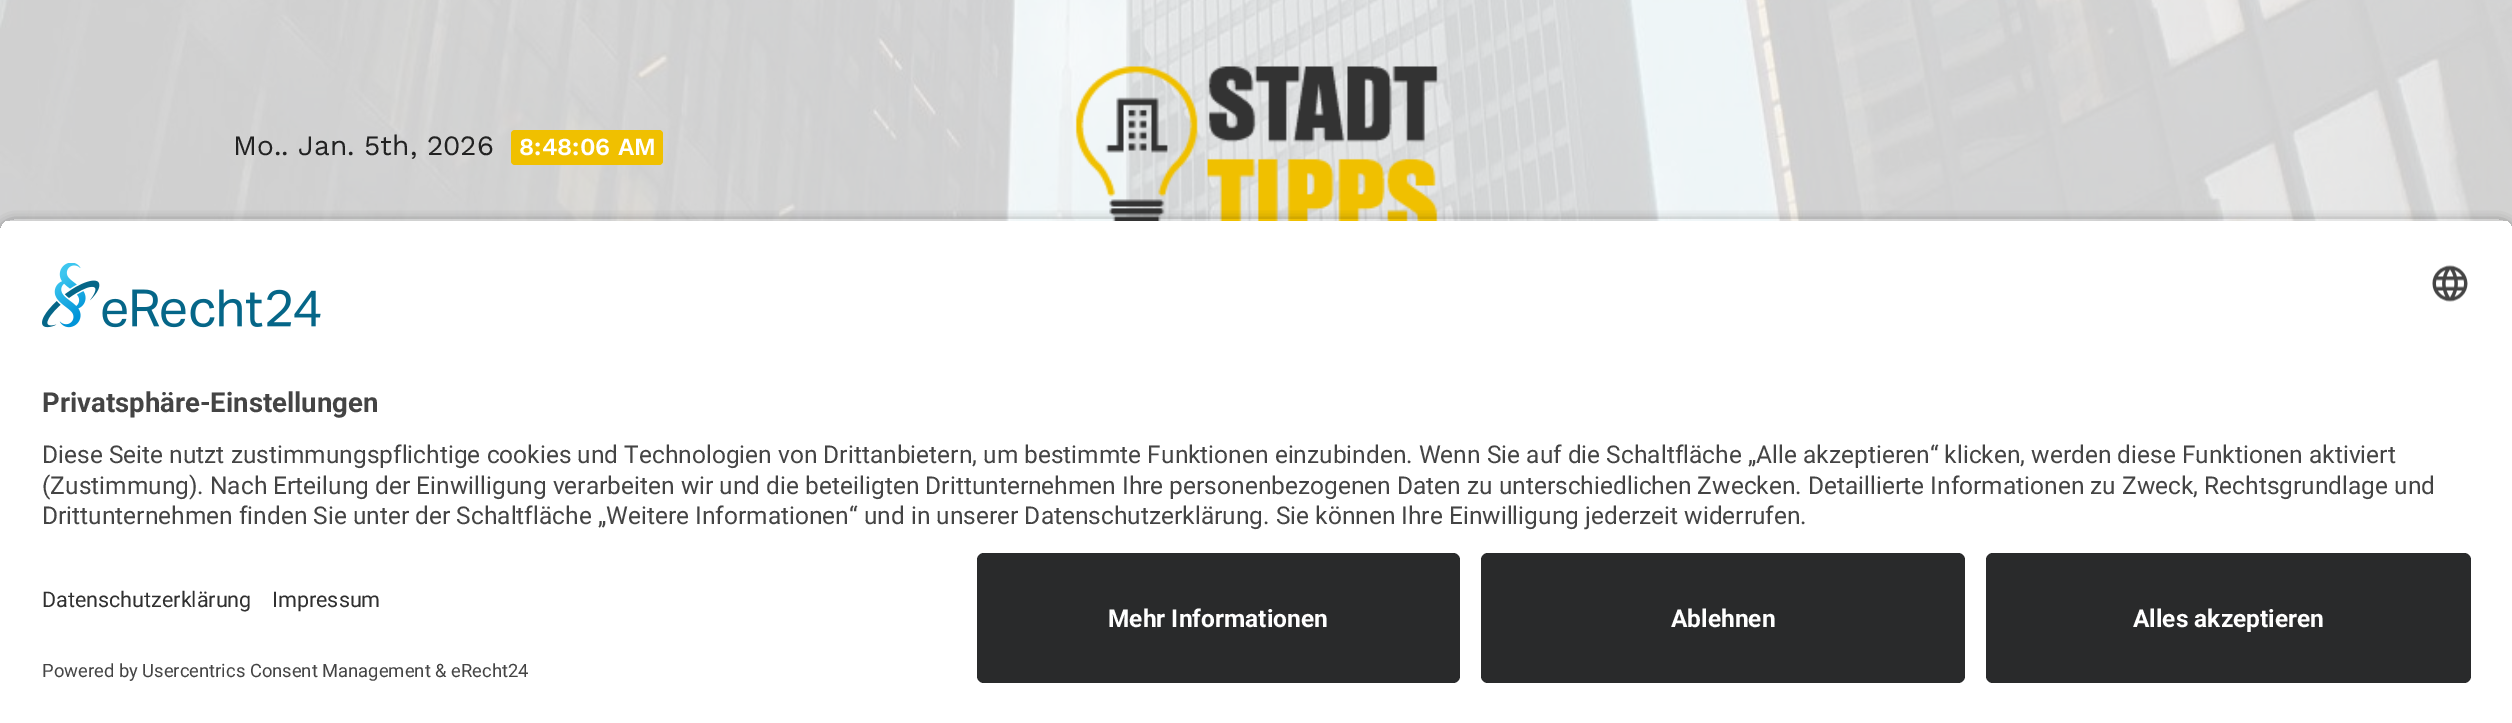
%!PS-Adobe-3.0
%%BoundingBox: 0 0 2512 723
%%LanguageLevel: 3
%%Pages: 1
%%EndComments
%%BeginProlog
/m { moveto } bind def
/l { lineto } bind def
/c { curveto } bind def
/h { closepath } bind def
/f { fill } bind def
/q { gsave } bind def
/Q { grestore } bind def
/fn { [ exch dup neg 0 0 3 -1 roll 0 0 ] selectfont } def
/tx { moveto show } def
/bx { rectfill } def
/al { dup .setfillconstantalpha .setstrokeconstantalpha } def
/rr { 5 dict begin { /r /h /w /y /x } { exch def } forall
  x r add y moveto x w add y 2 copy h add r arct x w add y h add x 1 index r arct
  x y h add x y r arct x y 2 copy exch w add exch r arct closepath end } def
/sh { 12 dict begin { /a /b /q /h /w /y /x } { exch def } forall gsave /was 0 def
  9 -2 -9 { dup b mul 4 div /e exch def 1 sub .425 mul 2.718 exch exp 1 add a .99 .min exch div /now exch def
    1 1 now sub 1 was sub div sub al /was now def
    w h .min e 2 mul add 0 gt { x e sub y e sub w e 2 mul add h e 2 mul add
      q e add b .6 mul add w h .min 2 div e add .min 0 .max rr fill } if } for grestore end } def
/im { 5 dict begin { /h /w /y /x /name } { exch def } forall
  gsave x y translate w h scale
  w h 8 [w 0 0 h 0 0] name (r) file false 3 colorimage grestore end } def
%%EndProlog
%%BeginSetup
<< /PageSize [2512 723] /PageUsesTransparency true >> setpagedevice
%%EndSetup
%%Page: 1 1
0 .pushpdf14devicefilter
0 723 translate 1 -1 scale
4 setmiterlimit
1 setgray
0 0 2512 723 bx
(image0.raw) 0 0 2512 233 im
/WorkSans-Regular 28 fn
0.133 setgray
(Mo.. Jan. 5th, 2026) 233 155 tx
0.941 0.753 0 setrgbcolor
511 130 152 35 4 rr f
/WorkSans-SemiBold 24.5 fn
1 setgray
(8:48:06 AM) 519 155 tx
(image1.raw) 1075 66 363 155 im
q
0 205 m 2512 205 l 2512 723 l 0 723 l h 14 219 m 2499 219 l 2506.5 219 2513 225.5 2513 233 c 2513 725 l 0 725 l 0 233 l 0 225.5 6.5 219 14 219 c h eoclip newpath
0 setgray
0 224 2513 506 14 6 0.8 sh
Q
q
14 219 m 2499 219 l 2506.5 219 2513 225.5 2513 233 c 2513 539 l 0 539 l 0 233 l 0 225.5 6.5 219 14 219 c h clip newpath
0 221 2512 318 bx
Q
(image2.raw) 42 263 279 65 im
(image3.raw) 2432 265 36 37 im
/Roboto-Bold 27.5 fn
0.267 setgray
(Privatsphäre-Einstellungen) 42 412 tx
/Roboto-Regular 24.5 fn
(Diese Seite nutzt zustimmungspflichtige cookies und Technologien von Drittanbietern, um bestimmte Funktionen einzubinden. Wenn Sie auf die Schaltfläche „Alle akzeptieren“ klicken, werden diese Funktionen aktiviert) 42 463 tx
(\(Zustimmung\). Nach Erteilung der Einwilligung verarbeiten wir und die beteiligten Drittunternehmen Ihre personenbezogenen Daten zu unterschiedlichen Zwecken. Detaillierte Informationen zu Zweck, Rechtsgrundlage und) 42 494 tx
(Drittunternehmen finden Sie unter der Schaltfläche „Weitere Informationen“ und in unserer Datenschutzerklärung. Sie können Ihre Einwilligung jederzeit widerrufen.) 42 524 tx
/Roboto-Regular 21.5 fn
0.188 setgray
(Datenschutzerklärung) 42 607 tx
(Impressum) 272 607 tx
/Roboto-Regular 18.4 fn
0.267 setgray
(Powered by Usercentrics Consent Management & eRecht24) 42 677 tx
0.161 0.165 0.169 setrgbcolor
977 553 483 130 7 rr f
/Roboto-Bold 24.5 fn
1 setgray
(Mehr Informationen) 1108 627 tx
0.161 0.165 0.169 setrgbcolor
1481 553 484 130 7 rr f
1 setgray
(Ablehnen) 1671 627 tx
0.161 0.165 0.169 setrgbcolor
1986 553 485 130 7 rr f
1 setgray
(Alles akzeptieren) 2133 627 tx
.poppdf14devicefilter showpage
%%EOF
